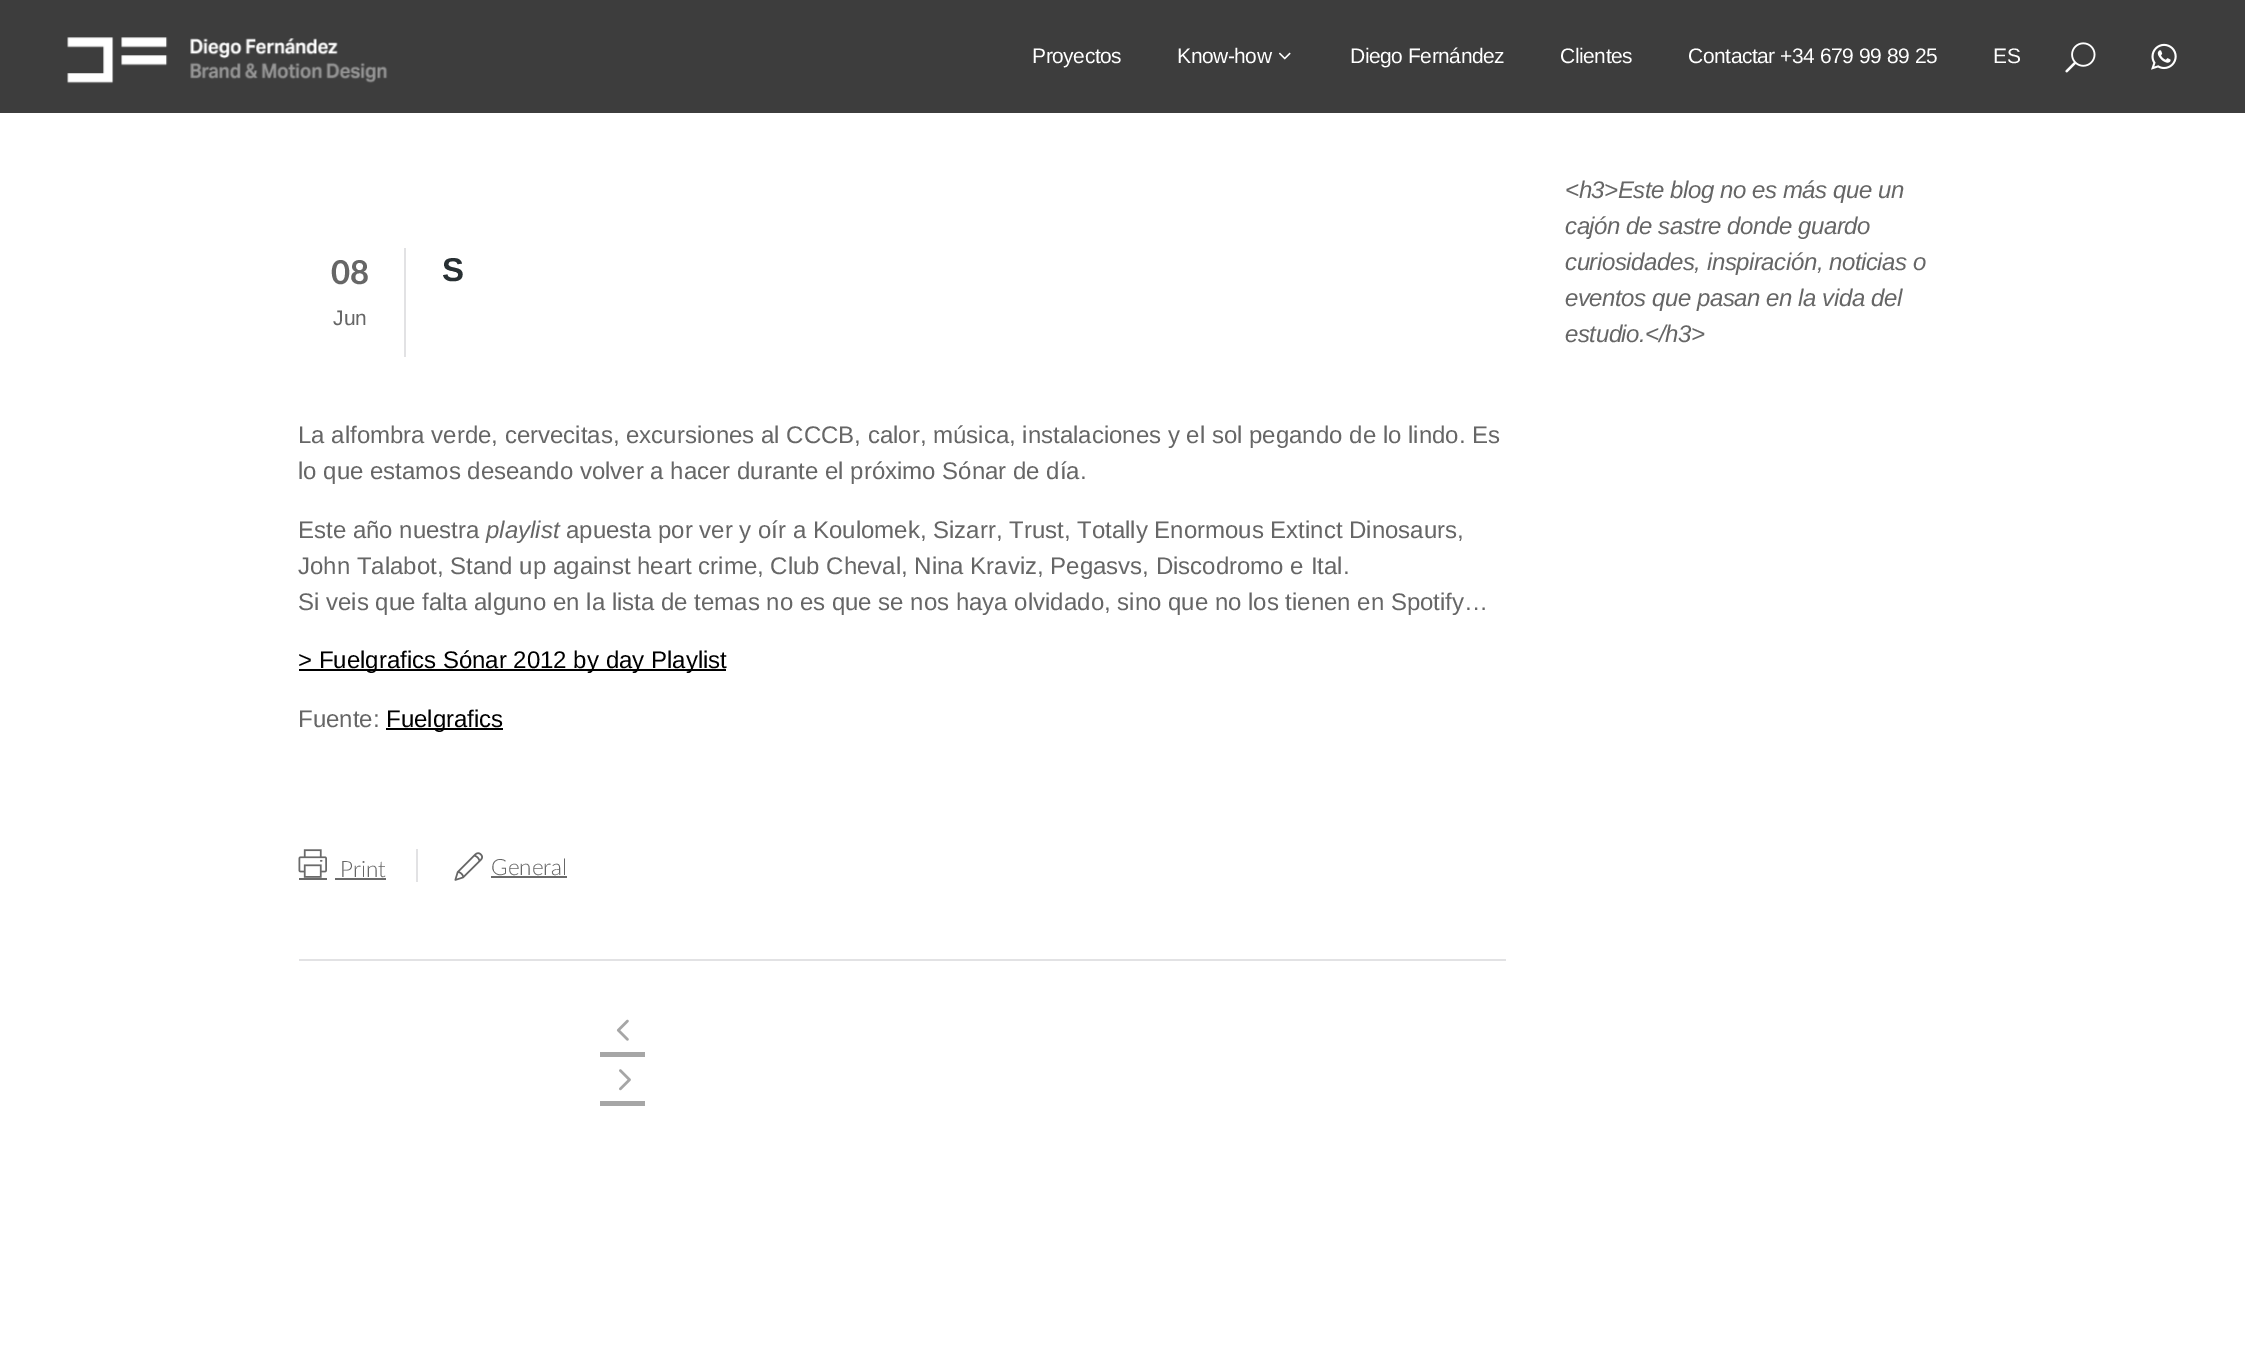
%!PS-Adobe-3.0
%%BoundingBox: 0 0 2245 1367
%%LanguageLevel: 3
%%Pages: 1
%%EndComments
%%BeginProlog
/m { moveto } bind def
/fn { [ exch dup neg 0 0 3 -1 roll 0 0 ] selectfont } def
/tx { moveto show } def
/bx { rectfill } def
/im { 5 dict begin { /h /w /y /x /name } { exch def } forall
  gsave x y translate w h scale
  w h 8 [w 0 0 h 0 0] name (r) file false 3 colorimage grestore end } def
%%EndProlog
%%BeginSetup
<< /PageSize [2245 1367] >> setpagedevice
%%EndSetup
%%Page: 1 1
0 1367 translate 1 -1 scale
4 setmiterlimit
1 setgray
0 0 2245 1367 bx
0.239 setgray
0 0 2245 113 bx
(image0.raw) 67 37 321 47 im
/LiberationSans-Regular 21 fn
1 setgray
1032 63 m -0.45 0 (Proyectos) ashow
1177 63 m -0.45 0 (Know-how) ashow
(image1.raw) 1278 52 13 8 im
1350 63 m -0.45 0 (Diego Fernández) ashow
1560 63 m -0.45 0 (Clientes) ashow
1688 63 m -0.45 0 (Contactar +34 679 99 89 25) ashow
1993 63 m -0.45 0 (ES) ashow
(image2.raw) 2065 42 31 31 im
(image3.raw) 2151 43 26 27 im
0.886 0.886 0.894 setrgbcolor
299 959 1207 2 bx
404 248 2 109 bx
/Lato-Bold 33 fn
0.4 setgray
(08) 331 284 tx
/LiberationSans-Regular 21 fn
(Jun) 333 325 tx
/LiberationSans-Bold 33 fn
0.157 0.188 0.2 setrgbcolor
(S) 442 281 tx
/LiberationSans-Regular 24 fn
0.4 setgray
(La alfombra verde, cervecitas, excursiones al CCCB, calor, música, instalaciones y el sol pegando de lo lindo. Es) 298 443 tx
(lo que estamos deseando volver a hacer durante el próximo Sónar de día.) 298 479 tx
(Este año nuestra) 298 538 tx
/LiberationSans-Italic 24 fn
(playlist) 486 538 tx
/LiberationSans-Regular 24 fn
(apuesta por ver y oír a Koulomek, Sizarr, Trust, Totally Enormous Extinct Dinosaurs,) 566 538 tx
(John Talabot, Stand up against heart crime, Club Cheval, Nina Kraviz, Pegasvs, Discodromo e Ital.) 298 574 tx
(Si veis que falta alguno en la lista de temas no es que se nos haya olvidado, sino que no los tienen en Spotify…) 298 610 tx
0 setgray
299 669 427 2 bx
(> Fuelgrafics Sónar 2012 by day Playlist) 298 668 tx
0.4 setgray
(Fuente:) 298 727 tx
0 setgray
386 728 117 2 bx
(Fuelgrafics) 386 727 tx
(image4.raw) 298 849 29 29 im
/Lato-Light 22.5 fn
0.4 setgray
(Print) 340 877 tx
0.416 setgray
299 878 28 2 bx
335 878 51 2 bx
0.886 0.886 0.894 setrgbcolor
416 849 2 33 bx
(image5.raw) 454 852 29 29 im
0.4 setgray
(General) 491 875 tx
0.416 setgray
491 876 76 2 bx
0.651 setgray
600 1052 45 5 bx
(image6.raw) 616 1019 13 22 im
600 1101 45 5 bx
(image7.raw) 619 1069 12 22 im
/LiberationSans-Italic 24 fn
0.4 setgray
1565 198 m -0.45 0 (<h3>Este blog no es más que un) ashow
1565 234 m -0.45 0 (cajón de sastre donde guardo) ashow
1565 270 m -0.45 0 (curiosidades, inspiración, noticias o) ashow
1565 306 m -0.45 0 (eventos que pasan en la vida del) ashow
1565 342 m -0.45 0 (estudio.</h3>) ashow
showpage
%%EOF
